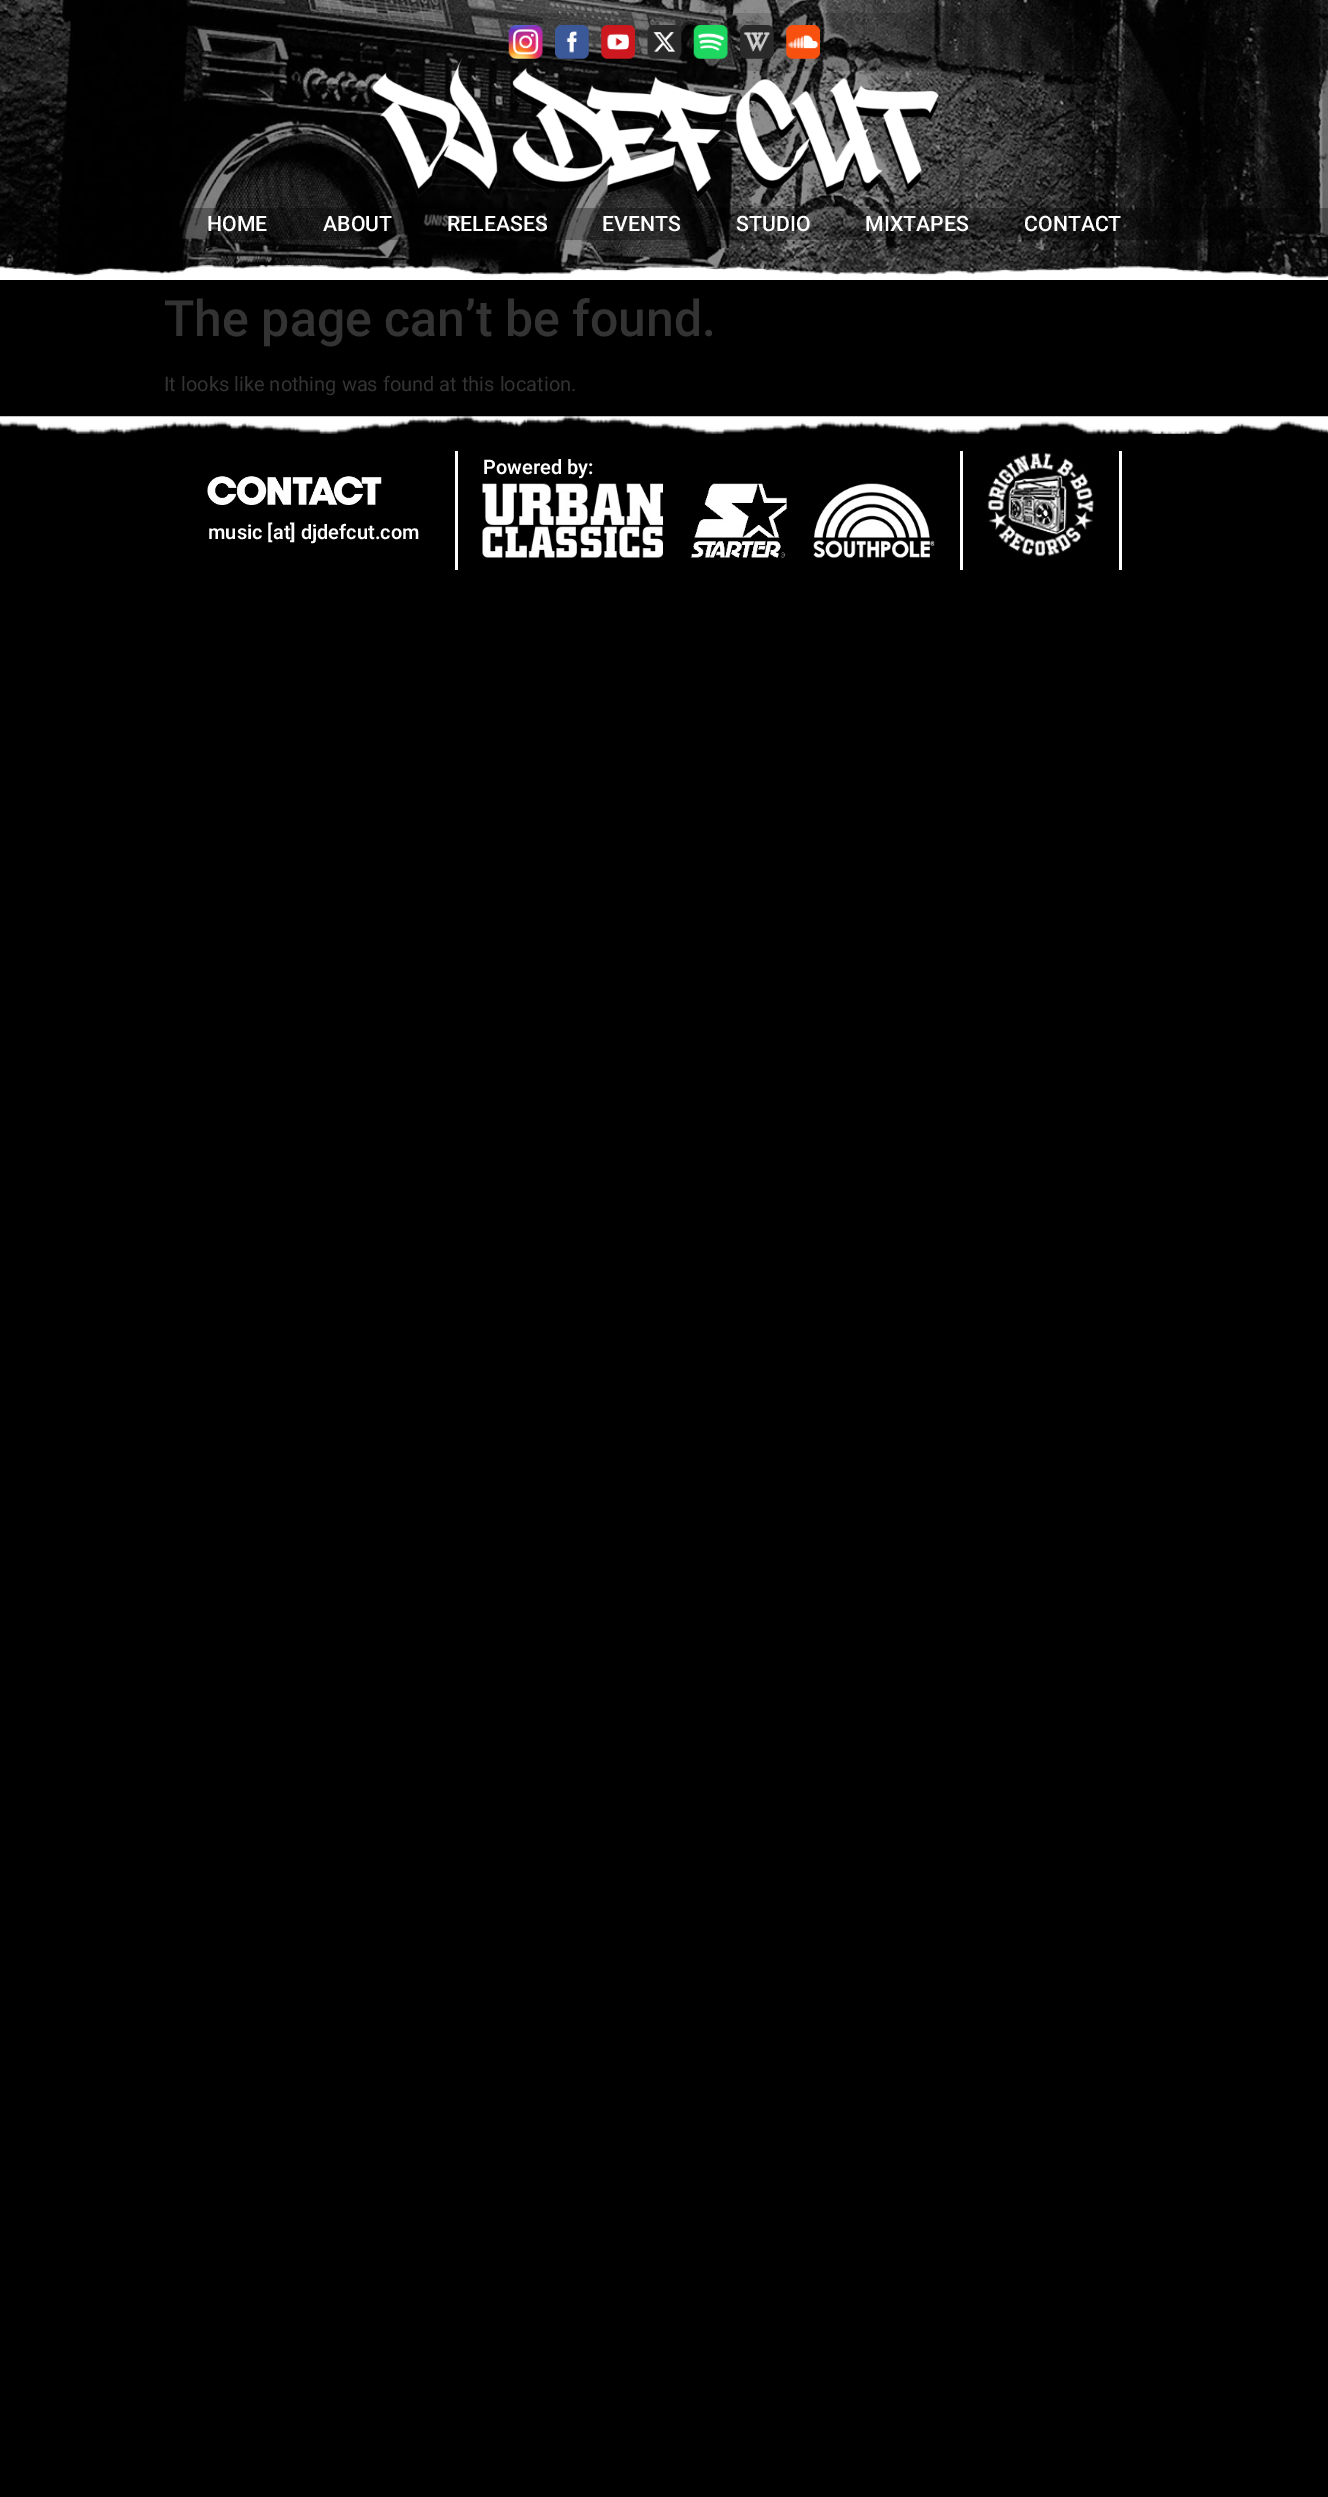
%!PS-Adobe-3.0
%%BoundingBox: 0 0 1328 2497
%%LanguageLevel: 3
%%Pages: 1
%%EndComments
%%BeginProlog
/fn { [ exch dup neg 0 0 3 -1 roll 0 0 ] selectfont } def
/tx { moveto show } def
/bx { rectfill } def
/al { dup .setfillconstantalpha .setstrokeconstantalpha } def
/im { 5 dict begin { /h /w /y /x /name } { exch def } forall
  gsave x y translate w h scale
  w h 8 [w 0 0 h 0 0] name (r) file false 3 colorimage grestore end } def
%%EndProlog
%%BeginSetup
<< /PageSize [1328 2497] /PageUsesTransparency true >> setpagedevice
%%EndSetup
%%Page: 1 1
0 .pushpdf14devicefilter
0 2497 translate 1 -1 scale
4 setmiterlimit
0 setgray
0 0 1328 2497 bx
(image0.raw) 0 0 1328 278 im
0.14 al
0 13 1328 58 bx
1 al
(image1.raw) 508 25 35 34 im
(image2.raw) 555 25 34 34 im
(image3.raw) 601 25 34 34 im
(image4.raw) 647 25 35 34 im
(image5.raw) 693 25 35 34 im
(image6.raw) 740 25 34 34 im
(image7.raw) 786 25 34 34 im
(image8.raw) 372 58 567 142 im
0.3 al
0 208 1328 32 bx
/Roboto-Medium 21.25 fn
1 al
1 setgray
(HOME) 207 231 tx
(ABOUT) 323 231 tx
(RELEASES) 447 231 tx
(EVENTS) 602 231 tx
(STUDIO) 736 231 tx
(MIXTAPES) 865 231 tx
(CONTACT) 1024 231 tx
(image9.raw) 0 265 1328 15 im
/Roboto-Medium 50 fn
0.2 setgray
(The page can’t be found.) 164 336 tx
/Roboto-Regular 20 fn
(It looks like nothing was found at this location.) 164 391 tx
(image10.raw) 0 416 1328 18 im
1 setgray
960 451 3 119 bx
/Roboto-SemiBold 20 fn
(Powered by:) 483 474 tx
(image11.raw) 482 483 453 75 im
1119 451 3 119 bx
(image12.raw) 987 452 107 105 im
455 451 3 119 bx
(image13.raw) 207 476 175 29 im
(music [at] djdefcut.com) 208 539 tx
.poppdf14devicefilter showpage
%%EOF
